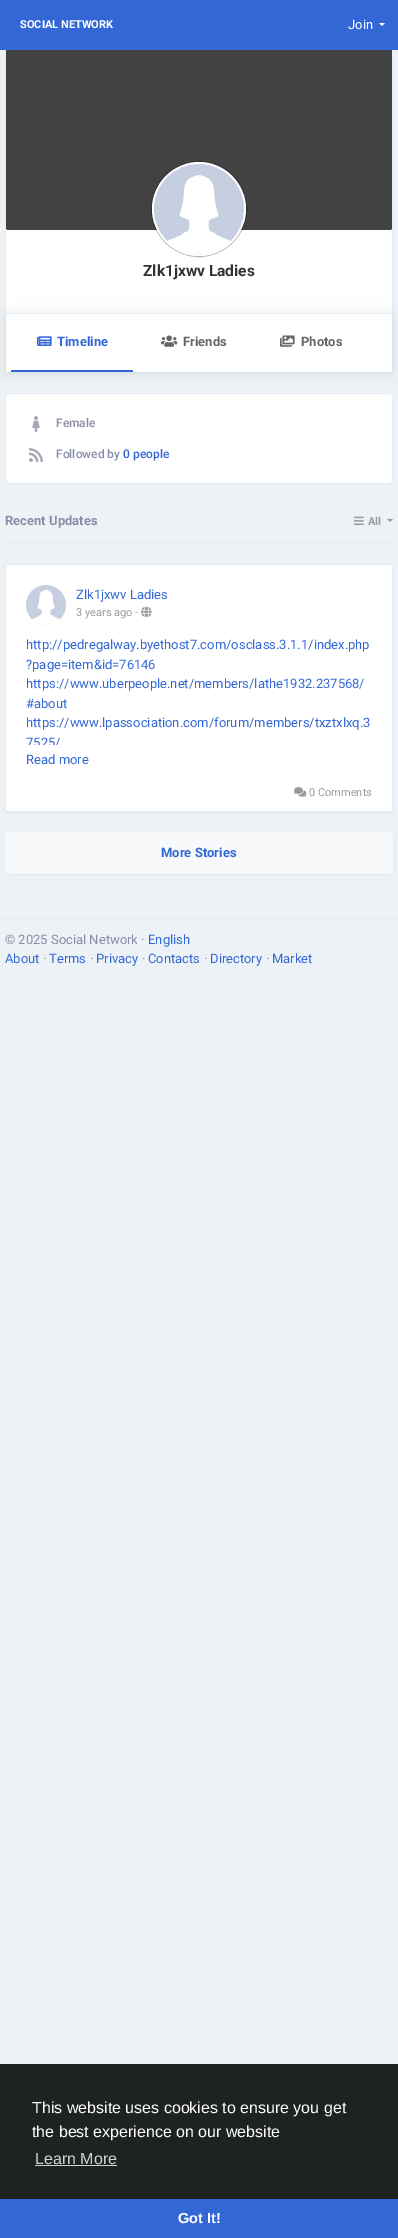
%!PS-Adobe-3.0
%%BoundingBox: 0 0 398 2238
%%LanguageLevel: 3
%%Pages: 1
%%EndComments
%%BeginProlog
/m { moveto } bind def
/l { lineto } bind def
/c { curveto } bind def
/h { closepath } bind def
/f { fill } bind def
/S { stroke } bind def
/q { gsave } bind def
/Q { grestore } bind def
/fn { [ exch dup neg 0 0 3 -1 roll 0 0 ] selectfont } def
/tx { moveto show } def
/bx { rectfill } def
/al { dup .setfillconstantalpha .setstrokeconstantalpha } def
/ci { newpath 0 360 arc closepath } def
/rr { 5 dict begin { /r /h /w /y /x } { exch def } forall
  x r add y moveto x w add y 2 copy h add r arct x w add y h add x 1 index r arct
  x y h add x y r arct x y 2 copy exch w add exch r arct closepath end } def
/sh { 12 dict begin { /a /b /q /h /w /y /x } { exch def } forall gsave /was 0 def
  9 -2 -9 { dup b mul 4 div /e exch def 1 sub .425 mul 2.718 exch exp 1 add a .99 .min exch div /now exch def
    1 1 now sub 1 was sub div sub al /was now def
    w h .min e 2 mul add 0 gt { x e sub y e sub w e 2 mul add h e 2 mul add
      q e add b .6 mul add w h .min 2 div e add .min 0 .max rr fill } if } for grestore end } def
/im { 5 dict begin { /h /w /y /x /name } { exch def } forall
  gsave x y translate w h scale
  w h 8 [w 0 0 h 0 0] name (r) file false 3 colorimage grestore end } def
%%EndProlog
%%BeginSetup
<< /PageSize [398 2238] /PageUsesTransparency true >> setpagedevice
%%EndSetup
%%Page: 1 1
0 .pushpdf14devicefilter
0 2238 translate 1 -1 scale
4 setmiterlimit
0.929 0.949 0.965 setrgbcolor
0 0 398 2238 bx
0.2 0.404 0.839 setrgbcolor
0 0 398 50 bx
/Roboto-Bold 11 fn
1 setgray
(SOCIAL NETWORK) 20 28 tx
/Roboto-Regular 13 fn
(Join) 348 29 tx
379 23 m 385 23 l 382 26 l h f
0.902 0.925 0.961 setrgbcolor
392 50 1 323 bx
5 372 388 1 bx
5 50 1 323 bx
0.259 setgray
6 50 m 392 50 l 392 228 l 392 229 391 230 390 230 c 8 230 l 7 230 6 229 6 228 c h f
1 setgray
6 230 386 83 bx
0.3 al
0 setgray
199 209 47.5 ci S
1 al
1 setgray
199 209 47 ci f
(image0.raw) 154 164 90 90 im
/Roboto-Bold 15.5 fn
0.2 setgray
(Zlk1jxwv Ladies) 143 276 tx
0 setgray
6 314 386 59 2 6.5 0.08 sh
1 setgray
6 313 m 392 313 l 392 370 l 392 371 391 372 390 372 c 8 372 l 7 372 6 371 6 370 c h f
0.902 0.925 0.961 setrgbcolor
6 313 386 1 bx
0.2 0.404 0.839 setrgbcolor
11 370 122 2 bx
(image1.raw) 37 336 15 10 im
/Roboto-Bold 13 fn
(Timeline) 57 346 tx
(image2.raw) 161 335 17 12 im
0.4 setgray
(Friends) 183 346 tx
(image3.raw) 280 335 15 12 im
(Photos) 301 346 tx
1 setgray
5.5 393.5 387 90 3.5 rr q f Q
0.902 0.925 0.961 setrgbcolor
S
(image4.raw) 32 416 8 16 im
/Roboto-Medium 12 fn
0.533 0.553 0.659 setrgbcolor
(Female) 56 427 tx
(image5.raw) 29 448 14 14 im
(Followed by) 56 458 tx
0.2 0.404 0.839 setrgbcolor
(0 people) 123 458 tx
0.902 0.925 0.961 setrgbcolor
5 543 388 1 bx
/Roboto-Bold 13 fn
0.533 0.553 0.659 setrgbcolor
(Recent Updates) 5 525 tx
(image6.raw) 354 516 10 10 im
/Roboto-Bold 11 fn
0.6 setgray
(All) 368 525 tx
387 519 m 393 519 l 390 522 l h f
0 setgray
5 565 388 248 3 0.5 0.05 sh
1 setgray
5.5 564.5 387 247 2.5 rr q f Q
0.902 0.925 0.961 setrgbcolor
S
0.933 setgray
46 605 20 ci f
(image7.raw) 26 585 40 40 im
/Roboto-Regular 13 fn
0.2 0.404 0.839 setrgbcolor
(Zlk1jxwv Ladies) 76 599 tx
/Roboto-Regular 11 fn
0.6 setgray
(3 years ago -) 76 616 tx
(image8.raw) 141 606 11 12 im
/Roboto-Regular 13 fn
0.2 0.404 0.839 setrgbcolor
(http://pedregalway.byethost7.com/osclass.3.1.1/index.php) 26 649 tx
(?page=item&id=76146) 26 669 tx
(https://www.uberpeople.net/members/lathe1932.237568/) 26 688 tx
(#about) 26 708 tx
(https://www.lpassociation.com/forum/members/txztxlxq.3) 26 727 tx
q
26 635 346 110 rectclip
(7525/) 26 747 tx
Q
(Read more) 26 764 tx
(image9.raw) 294 787 13 10 im
/Roboto-Regular 11 fn
0.6 setgray
(0 Comments) 309 796 tx
0 setgray
5 833 388 42 4 0.5 0.05 sh
0.973 0.976 0.98 setrgbcolor
5 832 388 42 4 rr f
/Roboto-Bold 13 fn
0.2 0.404 0.839 setrgbcolor
(More Stories) 161 857 tx
0.902 0.925 0.961 setrgbcolor
0 919 398 1 bx
/Roboto-Regular 13 fn
0.533 0.553 0.659 setrgbcolor
(© 2025 Social Network ·) 5 944 tx
0.2 0.404 0.839 setrgbcolor
(English) 148 944 tx
(About) 5 963 tx
0.533 0.553 0.659 setrgbcolor
(·) 43 963 tx
0.2 0.404 0.839 setrgbcolor
(Terms) 49 963 tx
0.533 0.553 0.659 setrgbcolor
(·) 90 963 tx
0.2 0.404 0.839 setrgbcolor
(Privacy) 96 963 tx
0.533 0.553 0.659 setrgbcolor
(·) 142 963 tx
0.2 0.404 0.839 setrgbcolor
(Contacts) 148 963 tx
0.533 0.553 0.659 setrgbcolor
(·) 204 963 tx
0.2 0.404 0.839 setrgbcolor
(Directory) 210 963 tx
0.533 0.553 0.659 setrgbcolor
(·) 266 963 tx
0.2 0.404 0.839 setrgbcolor
(Market) 272 963 tx
0.118 0.137 0.129 setrgbcolor
0 2064 398 135 bx
/LiberationSans-Regular 16 fn
1 setgray
(This website uses cookies to ensure you get) 32 2113 tx
(the best experience on our website) 32 2137 tx
0.824 0.827 0.827 setrgbcolor
(Learn More) 35 2164 tx
35 2165 82 1 bx
0.2 0.404 0.839 setrgbcolor
0 2199 398 39 bx
/LiberationSans-Bold 14.5 fn
1 setgray
(Got It!) 178 2223 tx
.poppdf14devicefilter showpage
%%EOF
